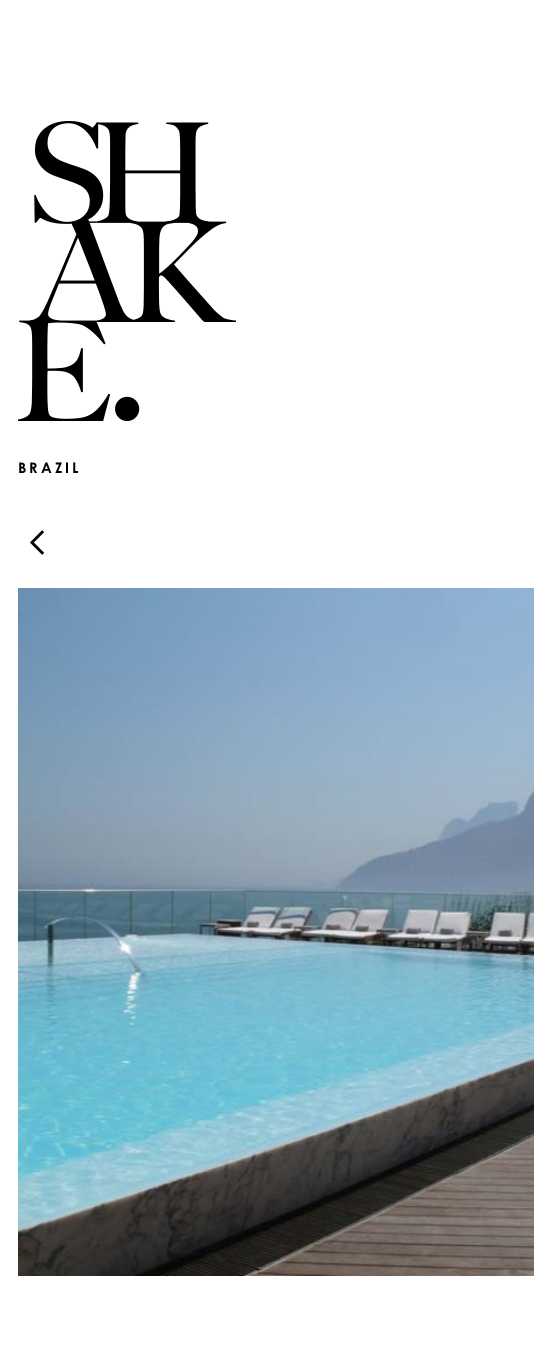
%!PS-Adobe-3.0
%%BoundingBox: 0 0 552 1357
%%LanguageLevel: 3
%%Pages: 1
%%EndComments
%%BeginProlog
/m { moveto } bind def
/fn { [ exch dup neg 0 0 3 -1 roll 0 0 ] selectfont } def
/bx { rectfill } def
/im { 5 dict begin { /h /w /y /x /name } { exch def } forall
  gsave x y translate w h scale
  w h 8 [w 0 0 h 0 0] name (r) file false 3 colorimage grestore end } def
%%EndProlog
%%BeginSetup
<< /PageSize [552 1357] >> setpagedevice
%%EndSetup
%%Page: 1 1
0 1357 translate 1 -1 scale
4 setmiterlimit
1 setgray
0 0 552 1357 bx
(image0.raw) 18 121 218 300 im
/CenturyGothic-Bold 14.5 fn
0 setgray
18 473 m 3 0 (BRAZIL) ashow
(image1.raw) 30 530 14 25 im
(image2.raw) 18 588 516 688 im
showpage
%%EOF
